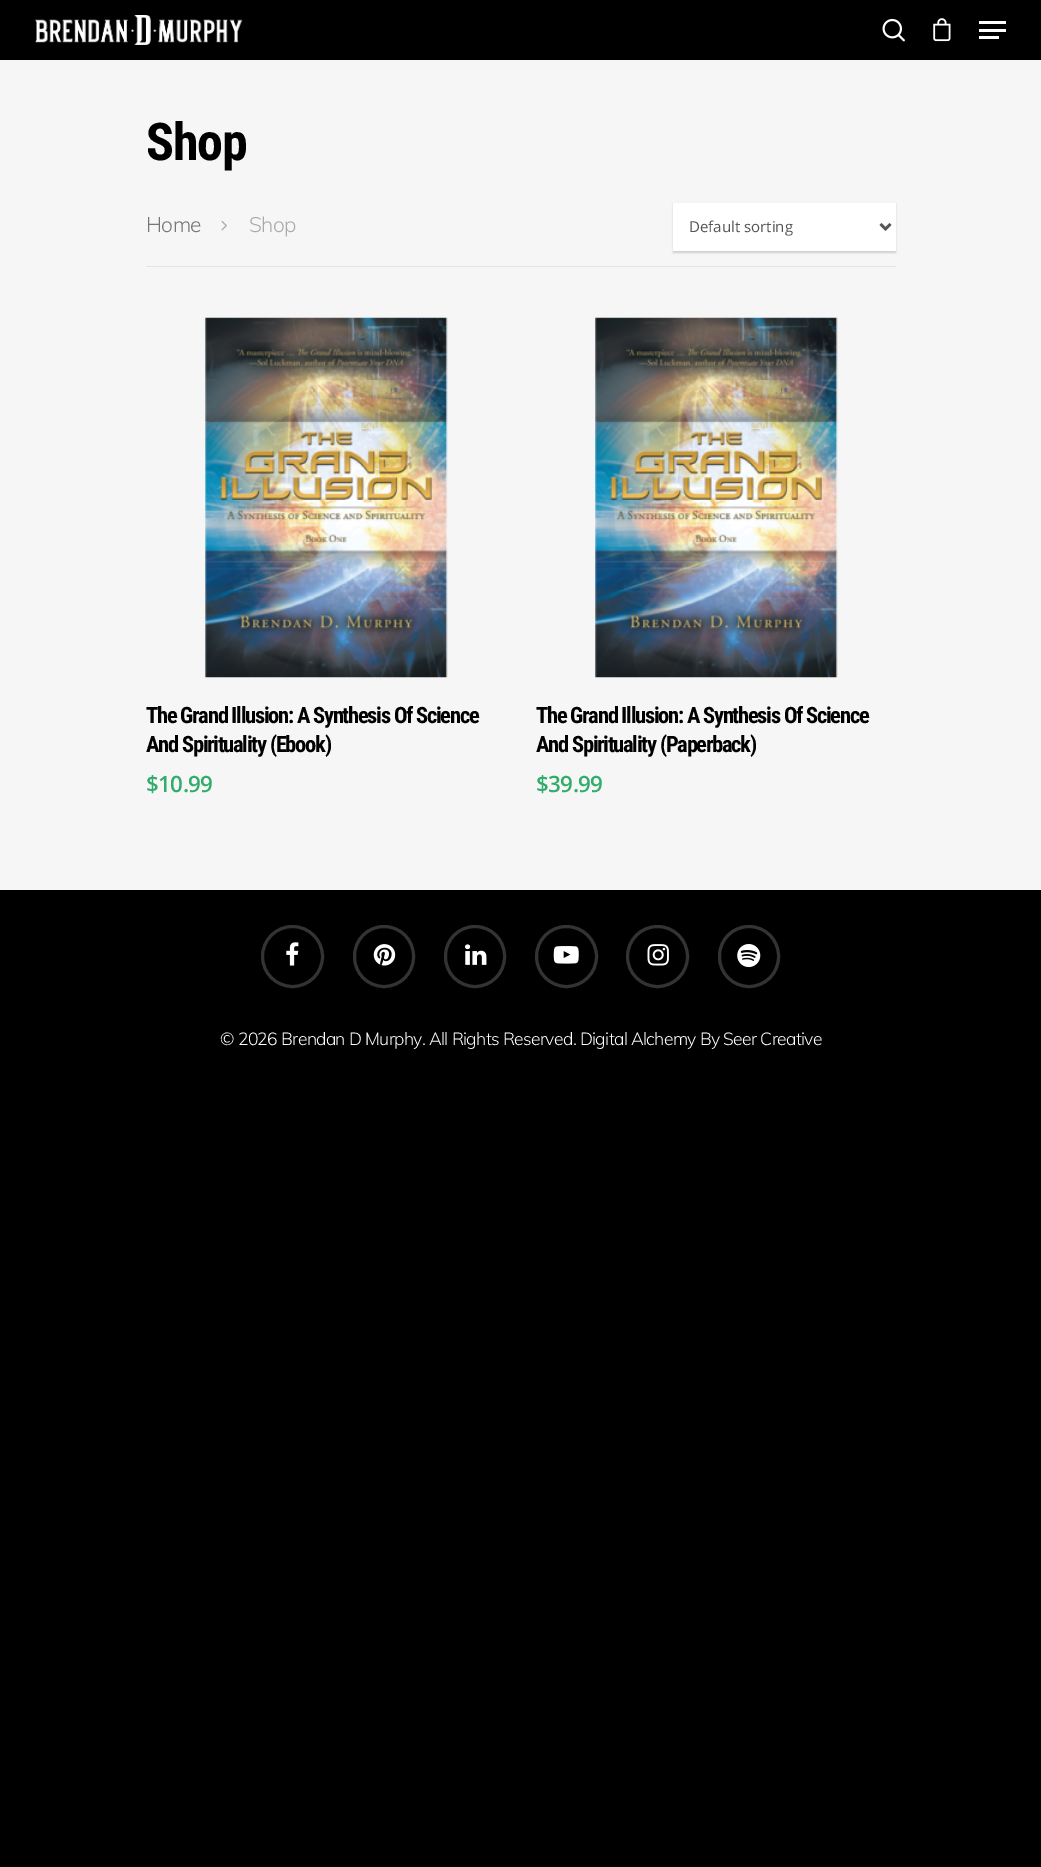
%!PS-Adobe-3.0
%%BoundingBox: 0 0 1041 1867
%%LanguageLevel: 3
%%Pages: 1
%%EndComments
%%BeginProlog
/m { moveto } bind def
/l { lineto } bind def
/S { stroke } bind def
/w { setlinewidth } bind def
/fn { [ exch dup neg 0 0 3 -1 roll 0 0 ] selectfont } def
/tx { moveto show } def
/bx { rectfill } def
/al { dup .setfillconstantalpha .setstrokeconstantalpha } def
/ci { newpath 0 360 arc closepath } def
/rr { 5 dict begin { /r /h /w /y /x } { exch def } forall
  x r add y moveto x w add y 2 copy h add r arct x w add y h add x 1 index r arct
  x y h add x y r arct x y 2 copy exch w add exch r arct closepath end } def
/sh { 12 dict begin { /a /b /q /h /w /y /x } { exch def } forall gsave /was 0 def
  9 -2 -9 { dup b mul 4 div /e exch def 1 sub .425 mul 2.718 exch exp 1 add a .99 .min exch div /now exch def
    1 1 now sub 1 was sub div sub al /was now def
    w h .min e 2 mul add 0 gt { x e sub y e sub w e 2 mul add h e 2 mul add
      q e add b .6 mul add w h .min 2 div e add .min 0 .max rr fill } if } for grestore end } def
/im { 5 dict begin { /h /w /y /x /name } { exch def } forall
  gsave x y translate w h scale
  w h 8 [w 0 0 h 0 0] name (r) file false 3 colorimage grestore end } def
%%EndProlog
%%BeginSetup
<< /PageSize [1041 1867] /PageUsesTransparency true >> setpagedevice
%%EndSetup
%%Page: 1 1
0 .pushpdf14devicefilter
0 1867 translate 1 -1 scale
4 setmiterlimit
0 setgray
0 0 1041 1867 bx
(image0.raw) 35 15 208 30 im
(image1.raw) 882 18 23 24 im
(image2.raw) 933 18 18 24 im
1 setgray
979 21 27 3 bx
979 36 20 3 bx
979 29 27 3 bx
0.965 setgray
0 60 1041 830 bx
/RobotoCondensed-Bold 52 fn
0 setgray
146 160 m -1.25 0 (Shop) ashow
0.898 setgray
146 266 750 1 bx
/Muli-Light 21 fn
0.463 setgray
146 232 m -0.62 0 (Home) ashow
(image3.raw) 221 220 6 11 im
0.667 setgray
249 232 m -0.62 0 (Shop) ashow
0 setgray
673 204 223 49 0 1 0.16 sh
1 setgray
673 203 223 48 bx
0.333 setgray
2.5 w
880.5 224 m 885.5 229 l 890.5 224 l S
/OpenSans-Regular 15 fn
(Default sorting) 689 232 tx
(image4.raw) 205 317 243 361 im
/RobotoCondensed-Bold 22.5 fn
0 setgray
146 723 m -1.25 0 (The Grand Illusion: A Synthesis Of Science) ashow
146 752 m -1.25 0 (And Spirituality \(Ebook\)) ashow
/OpenSans-SemiBold 22.5 fn
0.192 0.675 0.416 setrgbcolor
146 792 m -0.62 0 ($10.99) ashow
(image5.raw) 595 317 243 361 im
/RobotoCondensed-Bold 22.5 fn
0 setgray
536 723 m -1.25 0 (The Grand Illusion: A Synthesis Of Science) ashow
536 752 m -1.25 0 (And Spirituality \(Paperback\)) ashow
/OpenSans-SemiBold 22.5 fn
0.192 0.675 0.416 setrgbcolor
536 792 m -0.62 0 ($39.99) ashow
(image6.raw) 286 942 13 24 im
0.2 setgray
3 w
292.5 956.5 30 ci S
(image7.raw) 373 944 23 22 im
354.5 926.5 59 60 29.5 rr S
(image8.raw) 465 944 22 21 im
445.5 926.5 59 60 29.5 rr S
(image9.raw) 553 946 26 18 im
566.5 956.5 30 ci S
(image10.raw) 647 944 22 22 im
657.5 956.5 30 ci S
(image11.raw) 737 944 24 24 im
719.5 926.5 59 60 29.5 rr S
/Muli-Light 17.5 fn
1 setgray
220 1045 m -0.62 0 (© 2026 Brendan D Murphy. All Rights Reserved. Digital Alchemy By Seer Creative) ashow
.poppdf14devicefilter showpage
%%EOF
